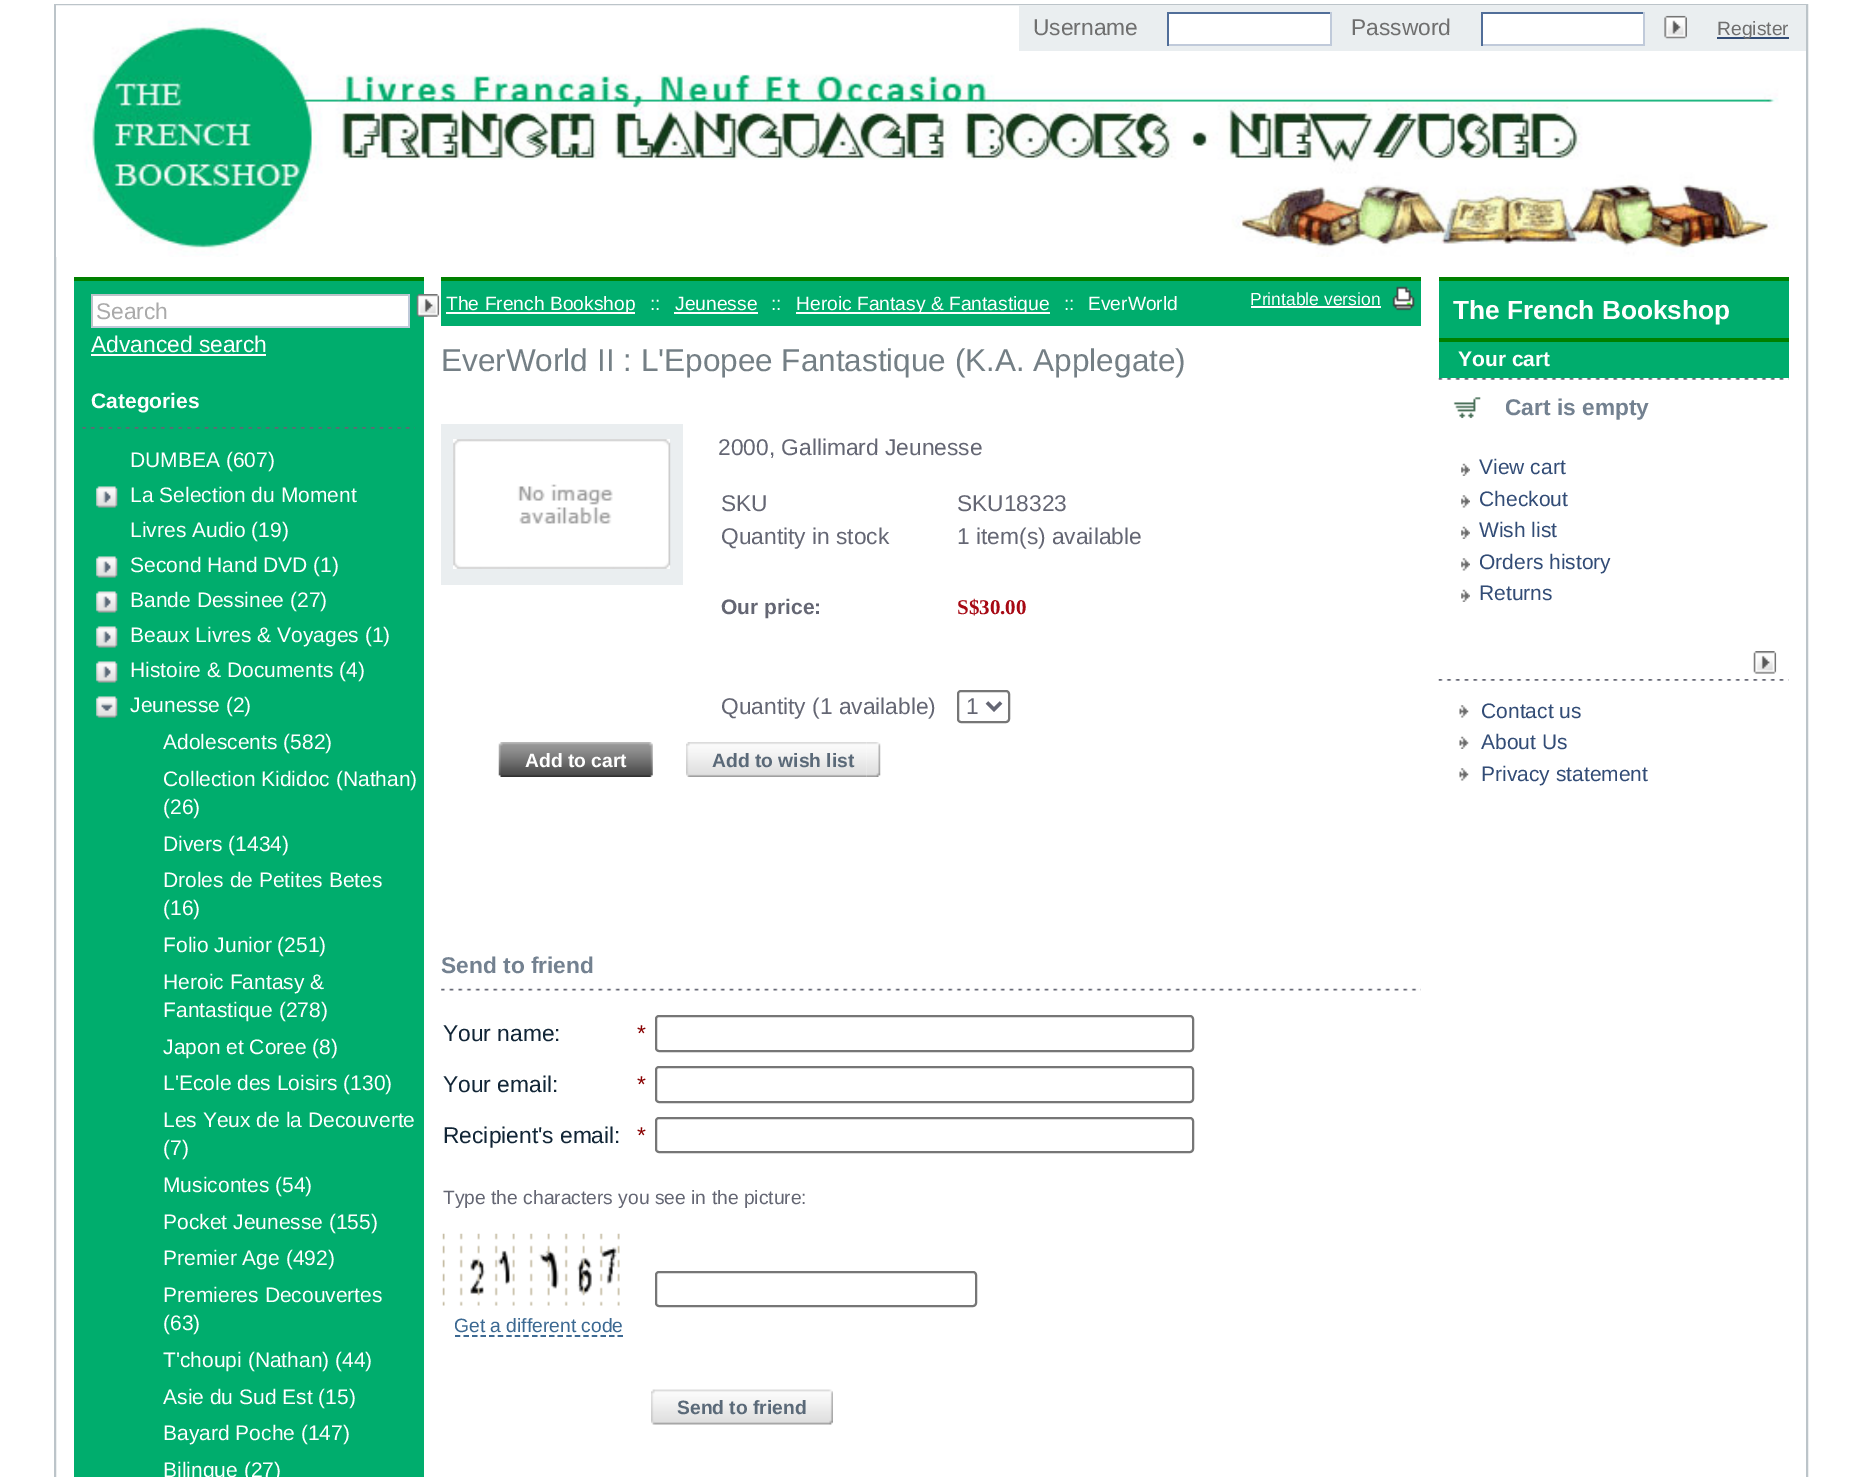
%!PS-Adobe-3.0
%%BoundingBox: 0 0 1861 1477
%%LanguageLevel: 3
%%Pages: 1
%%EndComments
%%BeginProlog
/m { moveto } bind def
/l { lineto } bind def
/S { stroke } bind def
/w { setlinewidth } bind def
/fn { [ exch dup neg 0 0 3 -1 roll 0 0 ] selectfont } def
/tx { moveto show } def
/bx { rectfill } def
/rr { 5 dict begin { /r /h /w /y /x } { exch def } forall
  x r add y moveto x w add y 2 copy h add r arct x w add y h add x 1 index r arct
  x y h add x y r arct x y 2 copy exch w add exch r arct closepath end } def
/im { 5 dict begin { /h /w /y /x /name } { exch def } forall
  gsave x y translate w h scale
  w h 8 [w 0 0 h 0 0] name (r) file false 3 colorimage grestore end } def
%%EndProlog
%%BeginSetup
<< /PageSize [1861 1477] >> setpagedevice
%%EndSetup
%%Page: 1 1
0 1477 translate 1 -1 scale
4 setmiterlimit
1 setgray
0 0 1861 1477 bx
0.737 0.769 0.788 setrgbcolor
2 w
55 5 1752 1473 rectstroke
(image0.raw) 56 5 1750 252 im
0.918 0.933 0.941 setrgbcolor
1019 5 787 46 bx
/LiberationSans-Regular 22.75 fn
0.435 setgray
(Username) 1033 35 tx
1 setgray
1169 14 161 30 bx
0.318 0.431 0.6 setrgbcolor
1167 12 165 2 bx
0.753 0.792 0.855 setrgbcolor
1330 12 2 34 bx
1167 44 165 2 bx
0.318 0.431 0.6 setrgbcolor
1167 12 2 34 bx
0.435 setgray
(Password) 1351 35 tx
1 setgray
1483 14 160 30 bx
0.318 0.431 0.6 setrgbcolor
1481 12 164 2 bx
0.753 0.792 0.855 setrgbcolor
1643 12 2 34 bx
1481 44 164 2 bx
0.318 0.431 0.6 setrgbcolor
1481 12 2 34 bx
(image1.raw) 1664 15 23 24 im
0.196 0.298 0.463 setrgbcolor
1717 37 72 2 bx
/LiberationSans-Regular 19.25 fn
0.435 setgray
(Register) 1717 35 tx
0 0.678 0.427 setrgbcolor
74 281 350 1196 bx
0 0.502 0 setrgbcolor
74 277 350 4 bx
1 setgray
93 296 315 30 bx
0.737 0.769 0.788 setrgbcolor
91 294 319 2 bx
0.753 0.792 0.855 setrgbcolor
408 294 2 33 bx
91 326 319 2 bx
0.737 0.769 0.788 setrgbcolor
91 294 2 33 bx
/LiberationSans-Regular 22.75 fn
0.667 setgray
(Search) 96 319 tx
(image2.raw) 416 294 24 23 im
1 setgray
(Advanced search) 91 352 tx
91 354 175 2 bx
(image3.raw) 82 427 333 2 im
/LiberationSans-Bold 21 fn
(Categories) 91 408 tx
/LiberationSans-Regular 21 fn
(DUMBEA \(607\)) 130 467 tx
(image4.raw) 96 486 22 22 im
(La Selection du Moment) 130 502 tx
(Livres Audio \(19\)) 130 537 tx
(image4.raw) 96 556 22 22 im
(Second Hand DVD \(1\)) 130 572 tx
(image4.raw) 96 591 22 22 im
(Bande Dessinee \(27\)) 130 607 tx
(image4.raw) 96 626 22 22 im
(Beaux Livres & Voyages \(1\)) 130 642 tx
(image4.raw) 96 661 22 22 im
(Histoire & Documents \(4\)) 130 677 tx
(image5.raw) 96 696 22 22 im
(Jeunesse \(2\)) 130 712 tx
(Adolescents \(582\)) 163 749 tx
(Collection Kididoc \(Nathan\)) 163 786 tx
(\(26\)) 163 814 tx
(Divers \(1434\)) 163 851 tx
(Droles de Petites Betes) 163 887 tx
(\(16\)) 163 915 tx
(Folio Junior \(251\)) 163 952 tx
(Heroic Fantasy &) 163 989 tx
(Fantastique \(278\)) 163 1017 tx
(Japon et Coree \(8\)) 163 1054 tx
(L'Ecole des Loisirs \(130\)) 163 1090 tx
(Les Yeux de la Decouverte) 163 1127 tx
(\(7\)) 163 1155 tx
(Musicontes \(54\)) 163 1192 tx
(Pocket Jeunesse \(155\)) 163 1229 tx
(Premier Age \(492\)) 163 1265 tx
(Premieres Decouvertes) 163 1302 tx
(\(63\)) 163 1330 tx
(T'choupi \(Nathan\) \(44\)) 163 1367 tx
(Asie du Sud Est \(15\)) 163 1404 tx
(Bayard Poche \(147\)) 163 1440 tx
(Bilingue \(27\)) 163 1477 tx
0 0.678 0.427 setrgbcolor
441 281 980 45 bx
0 0.502 0 setrgbcolor
441 277 980 4 bx
1 setgray
446 312 189 2 bx
/LiberationSans-Regular 19.25 fn
(The French Bookshop) 446 310 tx
(::) 650 310 tx
(Jeunesse) 675 310 tx
674 312 84 2 bx
(::) 771 310 tx
796 312 254 2 bx
(Heroic Fantasy & Fantastique) 796 310 tx
(::) 1064 310 tx
(EverWorld) 1088 310 tx
/LiberationSans-Regular 17.5 fn
(Printable version) 1250 305 tx
1251 306 130 2 bx
(image6.raw) 1392 286 23 25 im
/LiberationSans-Regular 31.5 fn
0.455 0.498 0.522 setrgbcolor
(EverWorld II : L'Epopee Fantastique \(K.A. Applegate\)) 441 371 tx
0.918 0.933 0.941 setrgbcolor
441 424 12 161 bx
453 424 217 15 bx
670 424 13 145 bx
(image7.raw) 453 439 218 130 im
453 569 230 16 bx
/LiberationSans-Regular 22.75 fn
0.392 0.4 0.451 setrgbcolor
(2000, Gallimard Jeunesse) 718 455 tx
(SKU) 721 511 tx
(SKU18323) 957 511 tx
(Quantity in stock) 721 544 tx
(1 item\(s\) available) 957 544 tx
/LiberationSans-Bold 21 fn
(Our price:) 721 614 tx
/LiberationSerif-Bold 21 fn
0.655 0.035 0.078 setrgbcolor
(S$30.00) 957 614 tx
/LiberationSans-Regular 22.75 fn
0.392 0.4 0.451 setrgbcolor
(Quantity \(1 available\)) 721 714 tx
0.463 setgray
958 691 51 31 3 rr S
0.392 0.4 0.451 setrgbcolor
3.5 w
987 702.5 m 994 709.5 l 1001 702.5 l S
(1) 966 714 tx
(image8.raw) 636 742 17 35 im
(image9.raw) 498 742 138 35 im
/LiberationSans-Bold 19.25 fn
1 setgray
(Add to cart) 525 767 tx
(image10.raw) 866 742 15 35 im
(image11.raw) 686 742 181 35 im
0.353 0.412 0.471 setrgbcolor
(Add to wish list) 712 767 tx
(image12.raw) 441 988 980 3 im
/LiberationSans-Bold 22.75 fn
0.451 0.506 0.565 setrgbcolor
(Send to friend) 441 973 tx
/LiberationSans-Regular 22.75 fn
0.067 0.145 0.212 setrgbcolor
(Your name:) 443 1041 tx
0.533 0 0 setrgbcolor
(*) 637 1041 tx
0.463 setgray
2 w
656 1016 537 35 3 rr S
0.067 0.145 0.212 setrgbcolor
(Your email:) 443 1092 tx
0.533 0 0 setrgbcolor
(*) 637 1092 tx
0.463 setgray
656 1067 537 35 3 rr S
0.067 0.145 0.212 setrgbcolor
(Recipient's email:) 443 1143 tx
0.533 0 0 setrgbcolor
(*) 637 1143 tx
0.463 setgray
656 1118 537 34 3 rr S
/LiberationSans-Regular 19.25 fn
0.392 0.4 0.451 setrgbcolor
(Type the characters you see in the picture:) 443 1204 tx
0.463 setgray
656 1272 320 34 3 rr S
(image13.raw) 442 1233 178 73 im
0.235 0.412 0.573 setrgbcolor
(Get a different code) 454 1332 tx
1.8 w
[5.25 3.31] 0 setdash
455 1336 m 623 1336 l S
(image14.raw) 819 1389 14 36 im
(image15.raw) 651 1389 168 36 im
/LiberationSans-Bold 19.25 fn
0.353 0.412 0.471 setrgbcolor
(Send to friend) 677 1414 tx
0 0.678 0.427 setrgbcolor
1439 281 350 57 bx
0 0.502 0 setrgbcolor
1439 277 350 4 bx
/LiberationSans-Bold 26.25 fn
1 setgray
(The French Bookshop) 1453 319 tx
0 0.678 0.427 setrgbcolor
1439 342 350 36 bx
0 0.502 0 setrgbcolor
1439 338 350 4 bx
/LiberationSans-Bold 21 fn
1 setgray
(Your cart) 1458 366 tx
(image16.raw) 1438 378 351 2 im
(image17.raw) 1453 397 28 22 im
/LiberationSans-Bold 22.75 fn
0.451 0.506 0.565 setrgbcolor
(Cart is empty) 1505 415 tx
(image18.raw) 1461 463 9 13 im
/LiberationSans-Regular 21 fn
0.196 0.298 0.463 setrgbcolor
(View cart) 1479 474 tx
(image19.raw) 1461 495 9 13 im
(Checkout) 1479 506 tx
(image18.raw) 1461 526 9 13 im
(Wish list) 1479 537 tx
(image19.raw) 1461 558 9 13 im
(Orders history) 1479 569 tx
(image18.raw) 1461 589 9 13 im
(Returns) 1479 600 tx
(image16.raw) 1438 679 351 2 im
(image20.raw) 1753 651 24 23 im
(image21.raw) 1459 705 10 13 im
(Contact us) 1481 718 tx
(image22.raw) 1459 736 10 13 im
(About Us) 1481 749 tx
(image21.raw) 1459 768 10 13 im
(Privacy statement) 1481 781 tx
showpage
%%EOF
